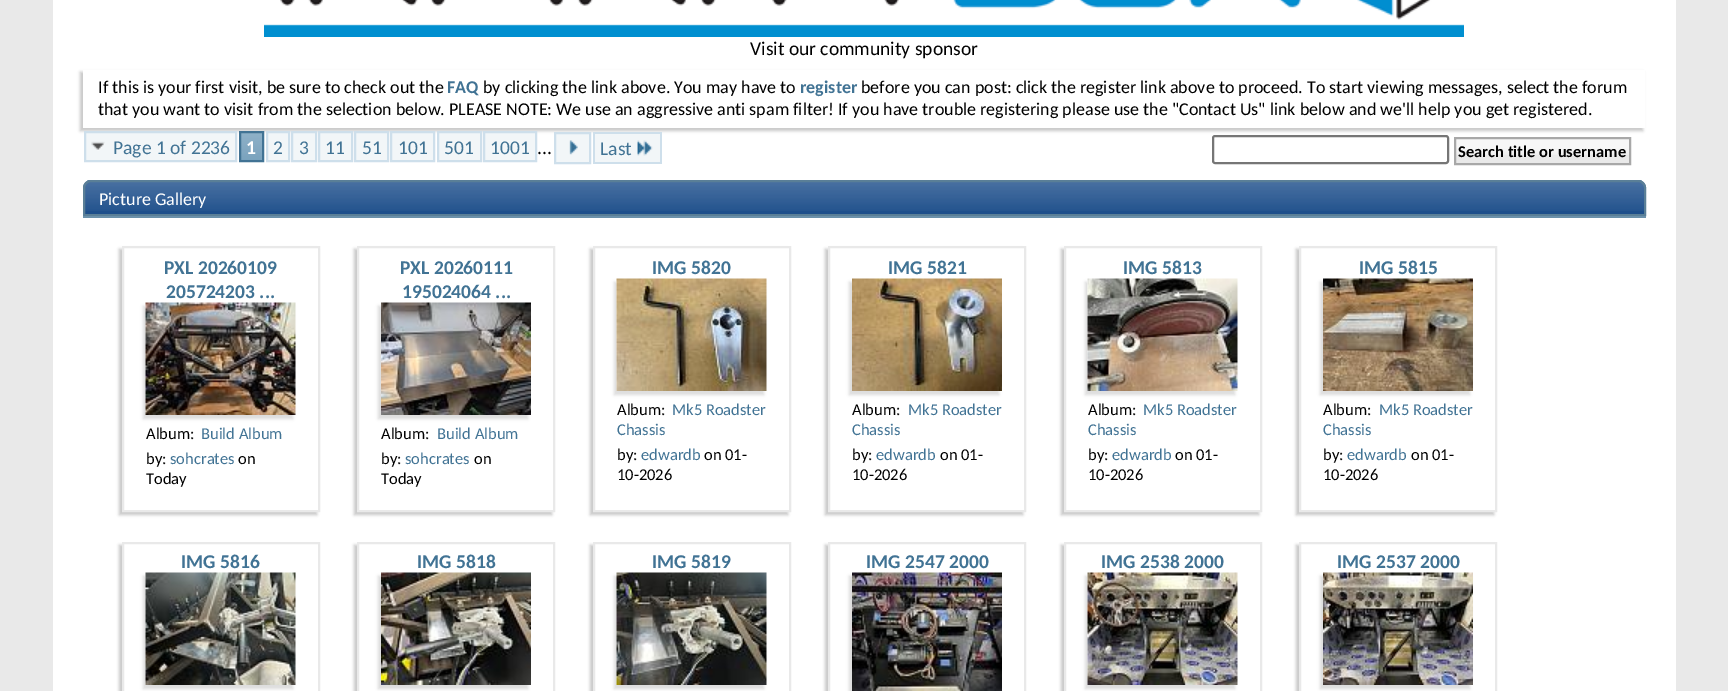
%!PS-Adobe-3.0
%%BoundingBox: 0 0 1728 691
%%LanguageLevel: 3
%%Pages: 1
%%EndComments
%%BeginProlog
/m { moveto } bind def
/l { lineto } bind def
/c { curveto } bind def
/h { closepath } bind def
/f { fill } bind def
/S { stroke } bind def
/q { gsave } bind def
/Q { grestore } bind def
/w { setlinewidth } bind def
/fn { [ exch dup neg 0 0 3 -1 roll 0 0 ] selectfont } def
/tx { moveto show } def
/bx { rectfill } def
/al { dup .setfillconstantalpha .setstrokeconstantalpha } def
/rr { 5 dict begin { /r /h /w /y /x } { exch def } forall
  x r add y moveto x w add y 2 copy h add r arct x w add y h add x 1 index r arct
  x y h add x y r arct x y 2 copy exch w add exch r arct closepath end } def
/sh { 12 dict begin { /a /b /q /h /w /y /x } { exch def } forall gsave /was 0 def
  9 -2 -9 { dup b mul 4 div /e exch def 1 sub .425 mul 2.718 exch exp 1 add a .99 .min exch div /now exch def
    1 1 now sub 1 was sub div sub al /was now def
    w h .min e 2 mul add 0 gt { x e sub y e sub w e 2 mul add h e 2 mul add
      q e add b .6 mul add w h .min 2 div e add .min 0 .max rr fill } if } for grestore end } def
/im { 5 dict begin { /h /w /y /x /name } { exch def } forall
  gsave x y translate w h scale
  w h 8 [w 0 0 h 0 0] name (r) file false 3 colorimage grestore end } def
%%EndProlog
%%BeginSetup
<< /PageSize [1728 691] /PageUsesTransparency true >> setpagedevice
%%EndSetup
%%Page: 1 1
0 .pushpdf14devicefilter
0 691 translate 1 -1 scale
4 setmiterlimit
0.914 setgray
0 0 1728 691 bx
1 setgray
53 0 1623 691 bx
(image0.raw) 264 0 1200 37 im
/Carlito-Regular 19.5 fn
0 setgray
(Visit our community sponsor) 750 55 tx
0.784 setgray
80 72 1563 59 0 1.5 1 sh
1 setgray
83 70 1562 58 bx
/Carlito-Regular 18 fn
0 setgray
(If this is your first visit, be sure to check out the) 98 93 tx
/Carlito-Bold 18 fn
0.255 0.451 0.58 setrgbcolor
(FAQ) 447 93 tx
/Carlito-Regular 18 fn
0 setgray
(by clicking the link above. You may have to) 483 93 tx
/Carlito-Bold 18 fn
0.255 0.451 0.58 setrgbcolor
(register) 800 93 tx
/Carlito-Regular 18 fn
0 setgray
(before you can post: click the register link above to proceed. To start viewing messages, select the forum) 861 93 tx
(that you want to visit from the selection below. PLEASE NOTE: We use an aggressive anti spam filter! If you have trouble registering please use the "Contact Us" link below and we'll help you get registered.) 98 115 tx
0.949 0.965 0.973 setrgbcolor
86 133 149 27 bx
(image1.raw) 91 141 14 10 im
0.808 0.875 0.922 setrgbcolor
2 w
85 132 151 29 rectstroke
/Carlito-Regular 19.5 fn
0.255 0.451 0.58 setrgbcolor
(Page 1 of 2236) 113 154 tx
0.459 0.624 0.733 setrgbcolor
241 133 21 27 bx
(image2.raw) 241 133 21 27 im
0.255 0.451 0.58 setrgbcolor
240 132 23 29 rectstroke
/Carlito-Bold 19.5 fn
1 setgray
(1) 246 154 tx
0.949 0.965 0.973 setrgbcolor
267 132 m 289 132 l 289 161 l 267 161 l h q f Q
0.808 0.875 0.922 setrgbcolor
S
/Carlito-Regular 19.5 fn
0.255 0.451 0.58 setrgbcolor
(2) 273 154 tx
0.949 0.965 0.973 setrgbcolor
292 132 m 316 132 l 316 161 l 292 161 l h q f Q
0.808 0.875 0.922 setrgbcolor
S
0.255 0.451 0.58 setrgbcolor
(3) 299 154 tx
0.949 0.965 0.973 setrgbcolor
319 132 m 352 132 l 352 161 l 319 161 l h q f Q
0.808 0.875 0.922 setrgbcolor
S
0.255 0.451 0.58 setrgbcolor
(11) 325 154 tx
0.949 0.965 0.973 setrgbcolor
355 132 m 388 132 l 388 161 l 355 161 l h q f Q
0.808 0.875 0.922 setrgbcolor
S
0.255 0.451 0.58 setrgbcolor
(51) 362 154 tx
0.949 0.965 0.973 setrgbcolor
391 132 m 434 132 l 434 161 l 391 161 l h q f Q
0.808 0.875 0.922 setrgbcolor
S
0.255 0.451 0.58 setrgbcolor
(101) 398 154 tx
0.949 0.965 0.973 setrgbcolor
438 132 m 481 132 l 481 161 l 438 161 l h q f Q
0.808 0.875 0.922 setrgbcolor
S
0.255 0.451 0.58 setrgbcolor
(501) 444 154 tx
0.949 0.965 0.973 setrgbcolor
484 132 m 536 132 l 536 161 l 484 161 l h q f Q
0.808 0.875 0.922 setrgbcolor
S
0.255 0.451 0.58 setrgbcolor
(1001) 490 154 tx
0 setgray
(...) 537 154 tx
0.949 0.965 0.973 setrgbcolor
555 133 m 590 133 l 590 163 l 555 163 l h q f Q
0.808 0.875 0.922 setrgbcolor
S
(image3.raw) 569 140 9 15 im
0.949 0.965 0.973 setrgbcolor
595 134 65 28 bx
0.255 0.451 0.58 setrgbcolor
(Last) 600 155 tx
0.808 0.875 0.922 setrgbcolor
593 132 69 2 bx
593 162 39 2 bx
593 132 2 32 bx
660 132 2 32 bx
632 162 30 2 bx
(image4.raw) 637 140 16 16 im
0.463 setgray
1213 136 235 27 2 rr S
0.914 setgray
1456 139 173 24 bx
(image5.raw) 1456 139 173 16 im
0.659 setgray
1455 138 175 26 rectstroke
/Carlito-Bold 16.5 fn
0 setgray
(Search title or username) 1458 157 tx
0.118 0.31 0.545 setrgbcolor
91 180 m 1638 180 l 1642.5 180 1646 183.5 1646 188 c 1646 216 l 83 216 l 83 188 l 83 183.5 86.5 180 91 180 c h f
(image6.raw) 83 181 1563 30 im
0.353 0.498 0.592 setrgbcolor
91 181 m 1638 181 l 1642 181 1645 184 1645 188 c 1645 215 l 84 215 l 84 188 l 84 184 87 181 91 181 c h S
/Carlito-Regular 18 fn
1 setgray
(Picture Gallery) 99 205 tx
0.42 0.569 0.671 setrgbcolor
83 216 1563 2 bx
0.784 setgray
119 249 198 266 0 1.5 1 sh
1 setgray
123 247 m 319 247 l 319 511 l 123 511 l h q f Q
0.914 setgray
S
/Carlito-Bold 19.5 fn
0.255 0.451 0.58 setrgbcolor
(PXL 20260109) 164 274 tx
(205724203 ...) 166 298 tx
0.867 setgray
143 306 150 113 0 1.5 1 sh
(image7.raw) 145 302 151 113 im
/Carlito-Regular 16.5 fn
0 setgray
(Album:) 146 439 tx
0.255 0.451 0.58 setrgbcolor
(Build Album) 201 439 tx
0 setgray
(by:) 146 464 tx
0.255 0.451 0.58 setrgbcolor
(sohcrates) 170 464 tx
0 setgray
(on) 238 464 tx
(Today) 146 484 tx
0.784 setgray
354 249 198 266 0 1.5 1 sh
1 setgray
358 247 m 554 247 l 554 511 l 358 511 l h q f Q
0.914 setgray
S
/Carlito-Bold 19.5 fn
0.255 0.451 0.58 setrgbcolor
(PXL 20260111) 400 274 tx
(195024064 ...) 402 298 tx
0.867 setgray
378 306 150 113 0 1.5 1 sh
(image8.raw) 381 302 150 113 im
/Carlito-Regular 16.5 fn
0 setgray
(Album:) 381 439 tx
0.255 0.451 0.58 setrgbcolor
(Build Album) 437 439 tx
0 setgray
(by:) 381 464 tx
0.255 0.451 0.58 setrgbcolor
(sohcrates) 405 464 tx
0 setgray
(on) 474 464 tx
(Today) 381 484 tx
0.784 setgray
590 249 198 266 0 1.5 1 sh
1 setgray
594 247 m 790 247 l 790 511 l 594 511 l h q f Q
0.914 setgray
S
/Carlito-Bold 19.5 fn
0.255 0.451 0.58 setrgbcolor
(IMG 5820) 652 274 tx
0.867 setgray
614 282 150 113 0 1.5 1 sh
(image9.raw) 616 278 151 113 im
/Carlito-Regular 16.5 fn
0 setgray
(Album:) 617 415 tx
0.255 0.451 0.58 setrgbcolor
(Mk5 Roadster) 672 415 tx
(Chassis) 617 435 tx
0 setgray
(by:) 617 460 tx
0.255 0.451 0.58 setrgbcolor
(edwardb) 641 460 tx
0 setgray
(on 01-) 704 460 tx
(10-2026) 617 480 tx
0.784 setgray
825 249 198 266 0 1.5 1 sh
1 setgray
829 247 m 1025 247 l 1025 511 l 829 511 l h q f Q
0.914 setgray
S
/Carlito-Bold 19.5 fn
0.255 0.451 0.58 setrgbcolor
(IMG 5821) 888 274 tx
0.867 setgray
849 282 150 113 0 1.5 1 sh
(image10.raw) 852 278 150 113 im
/Carlito-Regular 16.5 fn
0 setgray
(Album:) 852 415 tx
0.255 0.451 0.58 setrgbcolor
(Mk5 Roadster) 908 415 tx
(Chassis) 852 435 tx
0 setgray
(by:) 852 460 tx
0.255 0.451 0.58 setrgbcolor
(edwardb) 876 460 tx
0 setgray
(on 01-) 940 460 tx
(10-2026) 852 480 tx
0.784 setgray
1061 249 198 266 0 1.5 1 sh
1 setgray
1065 247 m 1261 247 l 1261 511 l 1065 511 l h q f Q
0.914 setgray
S
/Carlito-Bold 19.5 fn
0.255 0.451 0.58 setrgbcolor
(IMG 5813) 1123 274 tx
0.867 setgray
1085 282 150 113 0 1.5 1 sh
(image11.raw) 1087 278 151 113 im
/Carlito-Regular 16.5 fn
0 setgray
(Album:) 1088 415 tx
0.255 0.451 0.58 setrgbcolor
(Mk5 Roadster) 1143 415 tx
(Chassis) 1088 435 tx
0 setgray
(by:) 1088 460 tx
0.255 0.451 0.58 setrgbcolor
(edwardb) 1112 460 tx
0 setgray
(on 01-) 1175 460 tx
(10-2026) 1088 480 tx
0.784 setgray
1296 249 198 266 0 1.5 1 sh
1 setgray
1300 247 m 1496 247 l 1496 511 l 1300 511 l h q f Q
0.914 setgray
S
/Carlito-Bold 19.5 fn
0.255 0.451 0.58 setrgbcolor
(IMG 5815) 1359 274 tx
0.867 setgray
1320 282 150 113 0 1.5 1 sh
(image12.raw) 1323 278 150 113 im
/Carlito-Regular 16.5 fn
0 setgray
(Album:) 1323 415 tx
0.255 0.451 0.58 setrgbcolor
(Mk5 Roadster) 1379 415 tx
(Chassis) 1323 435 tx
0 setgray
(by:) 1323 460 tx
0.255 0.451 0.58 setrgbcolor
(edwardb) 1347 460 tx
0 setgray
(on 01-) 1411 460 tx
(10-2026) 1323 480 tx
q
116 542 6 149 rectclip
0.784 setgray
119 545 198 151 0 1.5 1 sh
Q
0.914 setgray
123 543 196 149 rectstroke
/Carlito-Bold 19.5 fn
0.255 0.451 0.58 setrgbcolor
(IMG 5816) 181 568 tx
0.867 setgray
143 576 150 113 0 1.5 1 sh
(image13.raw) 145 572 151 113 im
q
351 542 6 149 rectclip
0.784 setgray
354 545 198 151 0 1.5 1 sh
Q
0.914 setgray
358 543 196 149 rectstroke
0.255 0.451 0.58 setrgbcolor
(IMG 5818) 417 568 tx
0.867 setgray
378 576 150 113 0 1.5 1 sh
(image14.raw) 381 572 150 113 im
q
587 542 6 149 rectclip
0.784 setgray
590 545 198 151 0 1.5 1 sh
Q
0.914 setgray
594 543 196 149 rectstroke
0.255 0.451 0.58 setrgbcolor
(IMG 5819) 652 568 tx
0.867 setgray
614 576 150 113 0 1.5 1 sh
(image15.raw) 616 572 151 113 im
q
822 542 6 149 rectclip
0.784 setgray
825 545 198 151 0 1.5 1 sh
Q
0.914 setgray
829 543 196 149 rectstroke
0.255 0.451 0.58 setrgbcolor
(IMG 2547 2000) 866 568 tx
0.867 setgray
849 576 150 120 0 1.5 1 sh
(image16.raw) 852 572 150 119 im
q
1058 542 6 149 rectclip
0.784 setgray
1061 545 198 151 0 1.5 1 sh
Q
0.914 setgray
1065 543 196 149 rectstroke
0.255 0.451 0.58 setrgbcolor
(IMG 2538 2000) 1101 568 tx
0.867 setgray
1085 576 150 113 0 1.5 1 sh
(image17.raw) 1087 572 151 113 im
q
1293 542 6 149 rectclip
0.784 setgray
1296 545 198 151 0 1.5 1 sh
Q
0.914 setgray
1300 543 196 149 rectstroke
0.255 0.451 0.58 setrgbcolor
(IMG 2537 2000) 1337 568 tx
0.867 setgray
1320 576 150 113 0 1.5 1 sh
(image18.raw) 1323 572 150 113 im
.poppdf14devicefilter showpage
%%EOF
